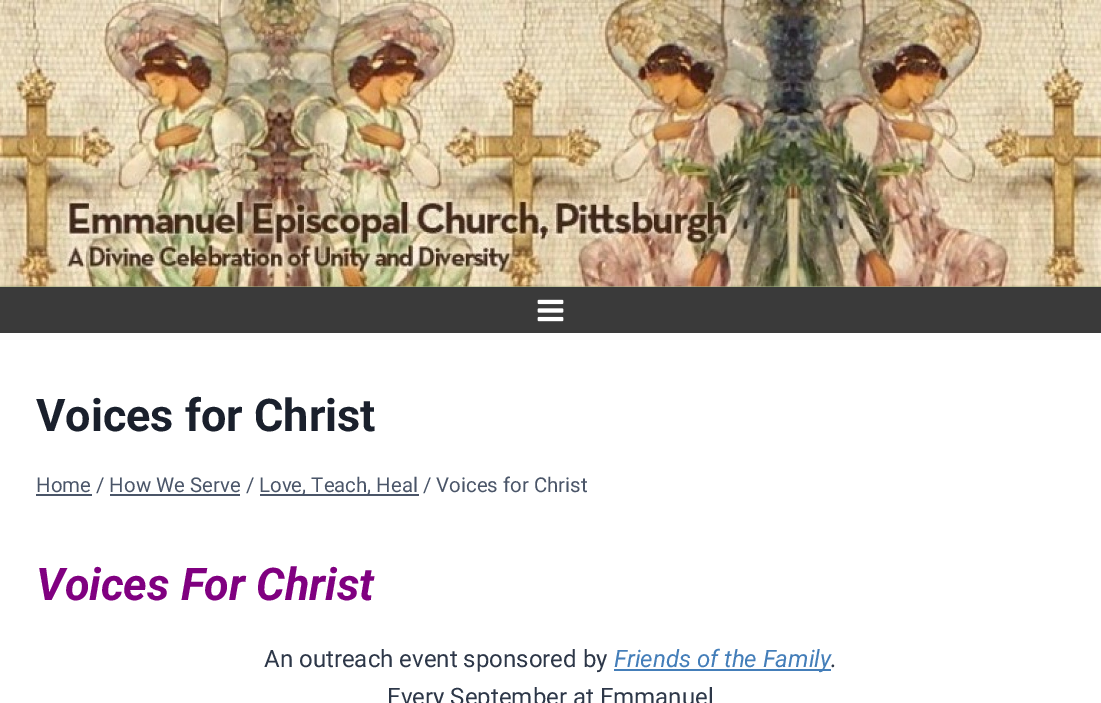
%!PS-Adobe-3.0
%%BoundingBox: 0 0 1101 703
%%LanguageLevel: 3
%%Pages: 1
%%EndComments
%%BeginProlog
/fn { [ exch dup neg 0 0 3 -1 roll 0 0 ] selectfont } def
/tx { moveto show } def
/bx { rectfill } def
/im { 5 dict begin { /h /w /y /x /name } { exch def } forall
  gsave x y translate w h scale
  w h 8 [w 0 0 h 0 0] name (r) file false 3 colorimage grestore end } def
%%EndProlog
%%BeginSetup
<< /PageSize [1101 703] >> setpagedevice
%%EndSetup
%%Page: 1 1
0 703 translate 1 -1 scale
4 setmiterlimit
1 setgray
0 0 1101 703 bx
0.62 0.698 0.51 setrgbcolor
0 286 1101 1 bx
(image0.raw) 0 0 1101 287 im
0.227 setgray
0 287 1101 46 bx
(image1.raw) 537 299 27 23 im
/Roboto-Bold 45 fn
0.102 0.125 0.173 setrgbcolor
(Voices for Christ) 36 431 tx
/Roboto-Regular 20.4 fn
0.29 0.333 0.408 setrgbcolor
(Home / How We Serve /) 36 492 tx
36 494 56 2 bx
260 494 159 2 bx
(Love, Teach, Heal / Voices for Christ) 259 492 tx
110 494 130 2 bx
/Roboto-BoldItalic 45 fn
0.502 0 0.502 setrgbcolor
(Voices For Christ) 36 600 tx
/Roboto-Regular 24 fn
0.176 0.216 0.282 setrgbcolor
(An outreach event sponsored by) 264 667 tx
0.267 0.494 0.725 setrgbcolor
614 669 217 2 bx
/Roboto-Italic 24 fn
(Friends of the Family) 614 667 tx
0.176 0.216 0.282 setrgbcolor
(.) 831 667 tx
/Roboto-Regular 24 fn
(Every September at Emmanuel) 387 705 tx
showpage
%%EOF
